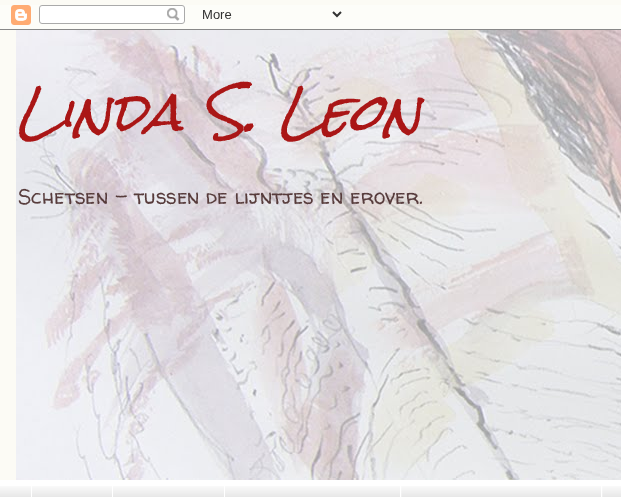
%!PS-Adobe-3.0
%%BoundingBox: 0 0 621 497
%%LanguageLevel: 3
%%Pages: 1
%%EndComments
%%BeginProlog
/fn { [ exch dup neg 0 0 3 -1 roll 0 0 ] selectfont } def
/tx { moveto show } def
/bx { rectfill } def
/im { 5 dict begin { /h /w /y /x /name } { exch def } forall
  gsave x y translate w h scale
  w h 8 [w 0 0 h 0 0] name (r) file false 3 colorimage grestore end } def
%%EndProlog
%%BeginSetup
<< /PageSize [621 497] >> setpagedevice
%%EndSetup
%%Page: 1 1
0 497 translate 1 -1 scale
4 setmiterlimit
0.988 0.984 0.961 setrgbcolor
0 0 621 497 bx
(image0.raw) 0 5 621 25 im
(image1.raw) 16 30 605 450 im
/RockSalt-Italic 50 fn
0.667 0.086 0.086 setrgbcolor
(Linda S. Leon) 16 132 tx
/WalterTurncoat-Regular 21 fn
0.341 0.235 0.235 setrgbcolor
(Schetsen - tussen de lijntjes en erover.) 18 204 tx
1 setgray
0 480 621 17 bx
(image2.raw) 0 486 621 11 im
31 480 1 17 bx
112 480 1 17 bx
224 480 1 17 bx
400.5 480.5 201 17 rectstroke
showpage
%%EOF
